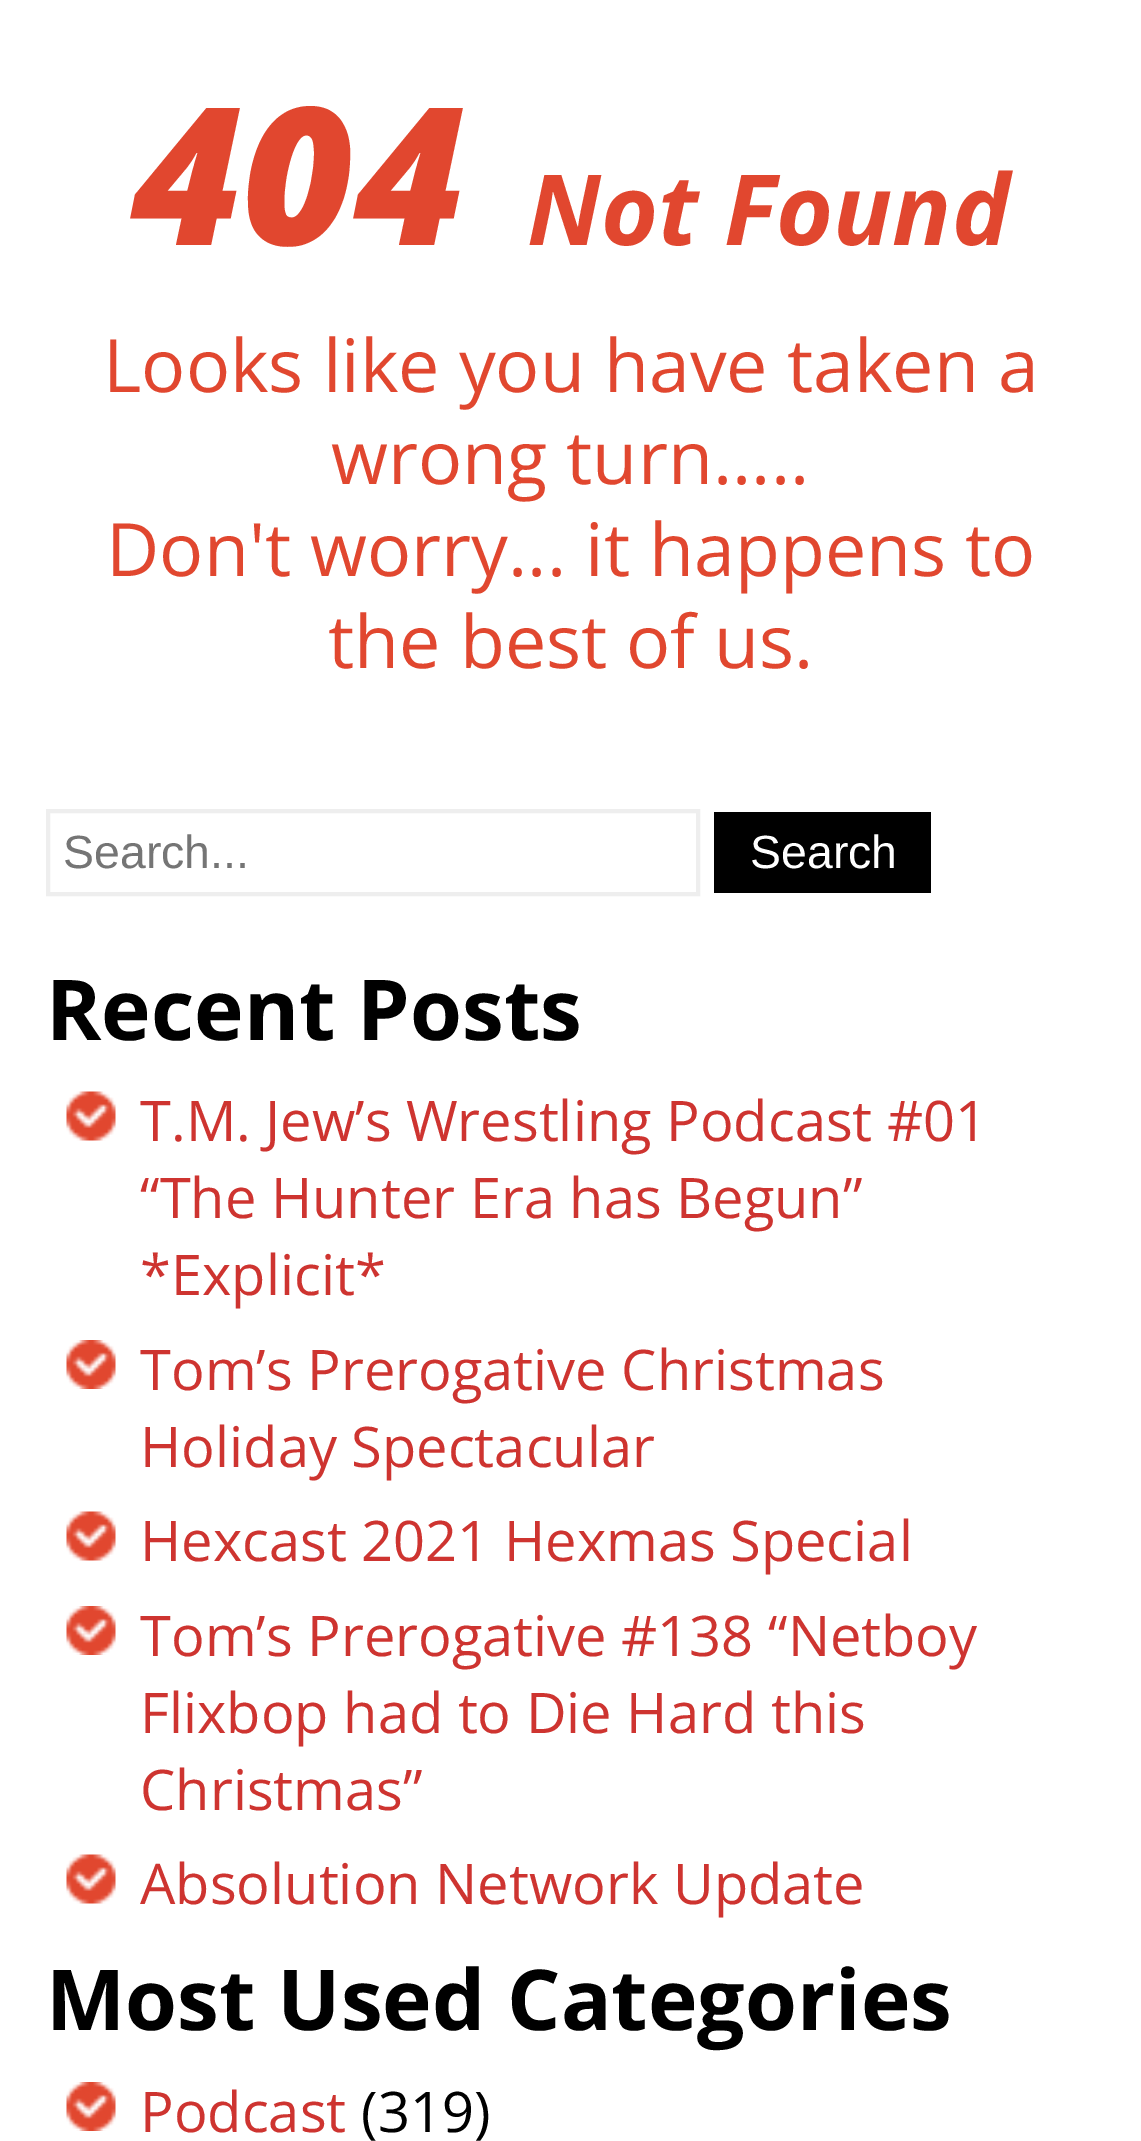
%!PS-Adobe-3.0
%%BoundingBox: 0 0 1141 2141
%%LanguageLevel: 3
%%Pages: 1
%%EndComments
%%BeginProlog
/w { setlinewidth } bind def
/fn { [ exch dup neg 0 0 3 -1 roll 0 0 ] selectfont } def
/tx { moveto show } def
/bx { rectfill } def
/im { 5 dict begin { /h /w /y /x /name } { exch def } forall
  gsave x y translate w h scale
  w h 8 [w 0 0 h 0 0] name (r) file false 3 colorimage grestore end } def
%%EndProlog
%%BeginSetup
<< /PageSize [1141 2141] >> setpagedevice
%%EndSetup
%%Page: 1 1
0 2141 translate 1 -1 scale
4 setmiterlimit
1 setgray
0 0 1141 2141 bx
/OpenSans-ExtraBoldItalic 192 fn
0.882 0.278 0.184 setrgbcolor
(404) 131 245 tx
/OpenSans-BoldItalic 98 fn
(Not Found) 527 245 tx
/OpenSans-Regular 73.5 fn
(Looks like you have taken a) 103 392 tx
(wrong turn.....) 331 484 tx
(Don't worry... it happens to) 106 576 tx
(the best of us.) 328 668 tx
0.933 setgray
4 w
48 811 650 83 rectstroke
/LiberationSans-Regular 46.5 fn
0.459 setgray
(Search...) 63 868 tx
0 setgray
714 812 217 81 bx
1 setgray
(Search) 750 868 tx
/OpenSans-Bold 84 fn
0 setgray
(Recent Posts) 46 1040 tx
(image0.raw) 66 1091 50 50 im
/OpenSans-Regular 56 fn
0.808 0.204 0.188 setrgbcolor
(T.M. Jew’s Wrestling Podcast #01) 140 1141 tx
(“The Hunter Era has Begun”) 140 1218 tx
(*Explicit*) 140 1295 tx
(image1.raw) 66 1340 50 49 im
(Tom’s Prerogative Christmas) 140 1390 tx
(Holiday Spectacular) 140 1467 tx
(image0.raw) 66 1511 50 50 im
(Hexcast 2021 Hexmas Special) 140 1561 tx
(image1.raw) 66 1606 50 49 im
(Tom’s Prerogative #138 “Netboy) 140 1656 tx
(Flixbop had to Die Hard this) 140 1733 tx
(Christmas”) 140 1810 tx
(image0.raw) 66 1854 50 50 im
(Absolution Network Update) 140 1904 tx
/OpenSans-Bold 84 fn
0 setgray
(Most Used Categories) 46 2030 tx
(image1.raw) 66 2082 50 49 im
/OpenSans-Regular 56 fn
0.808 0.204 0.188 setrgbcolor
(Podcast) 140 2132 tx
0 setgray
(\(319\)) 361 2132 tx
showpage
%%EOF
